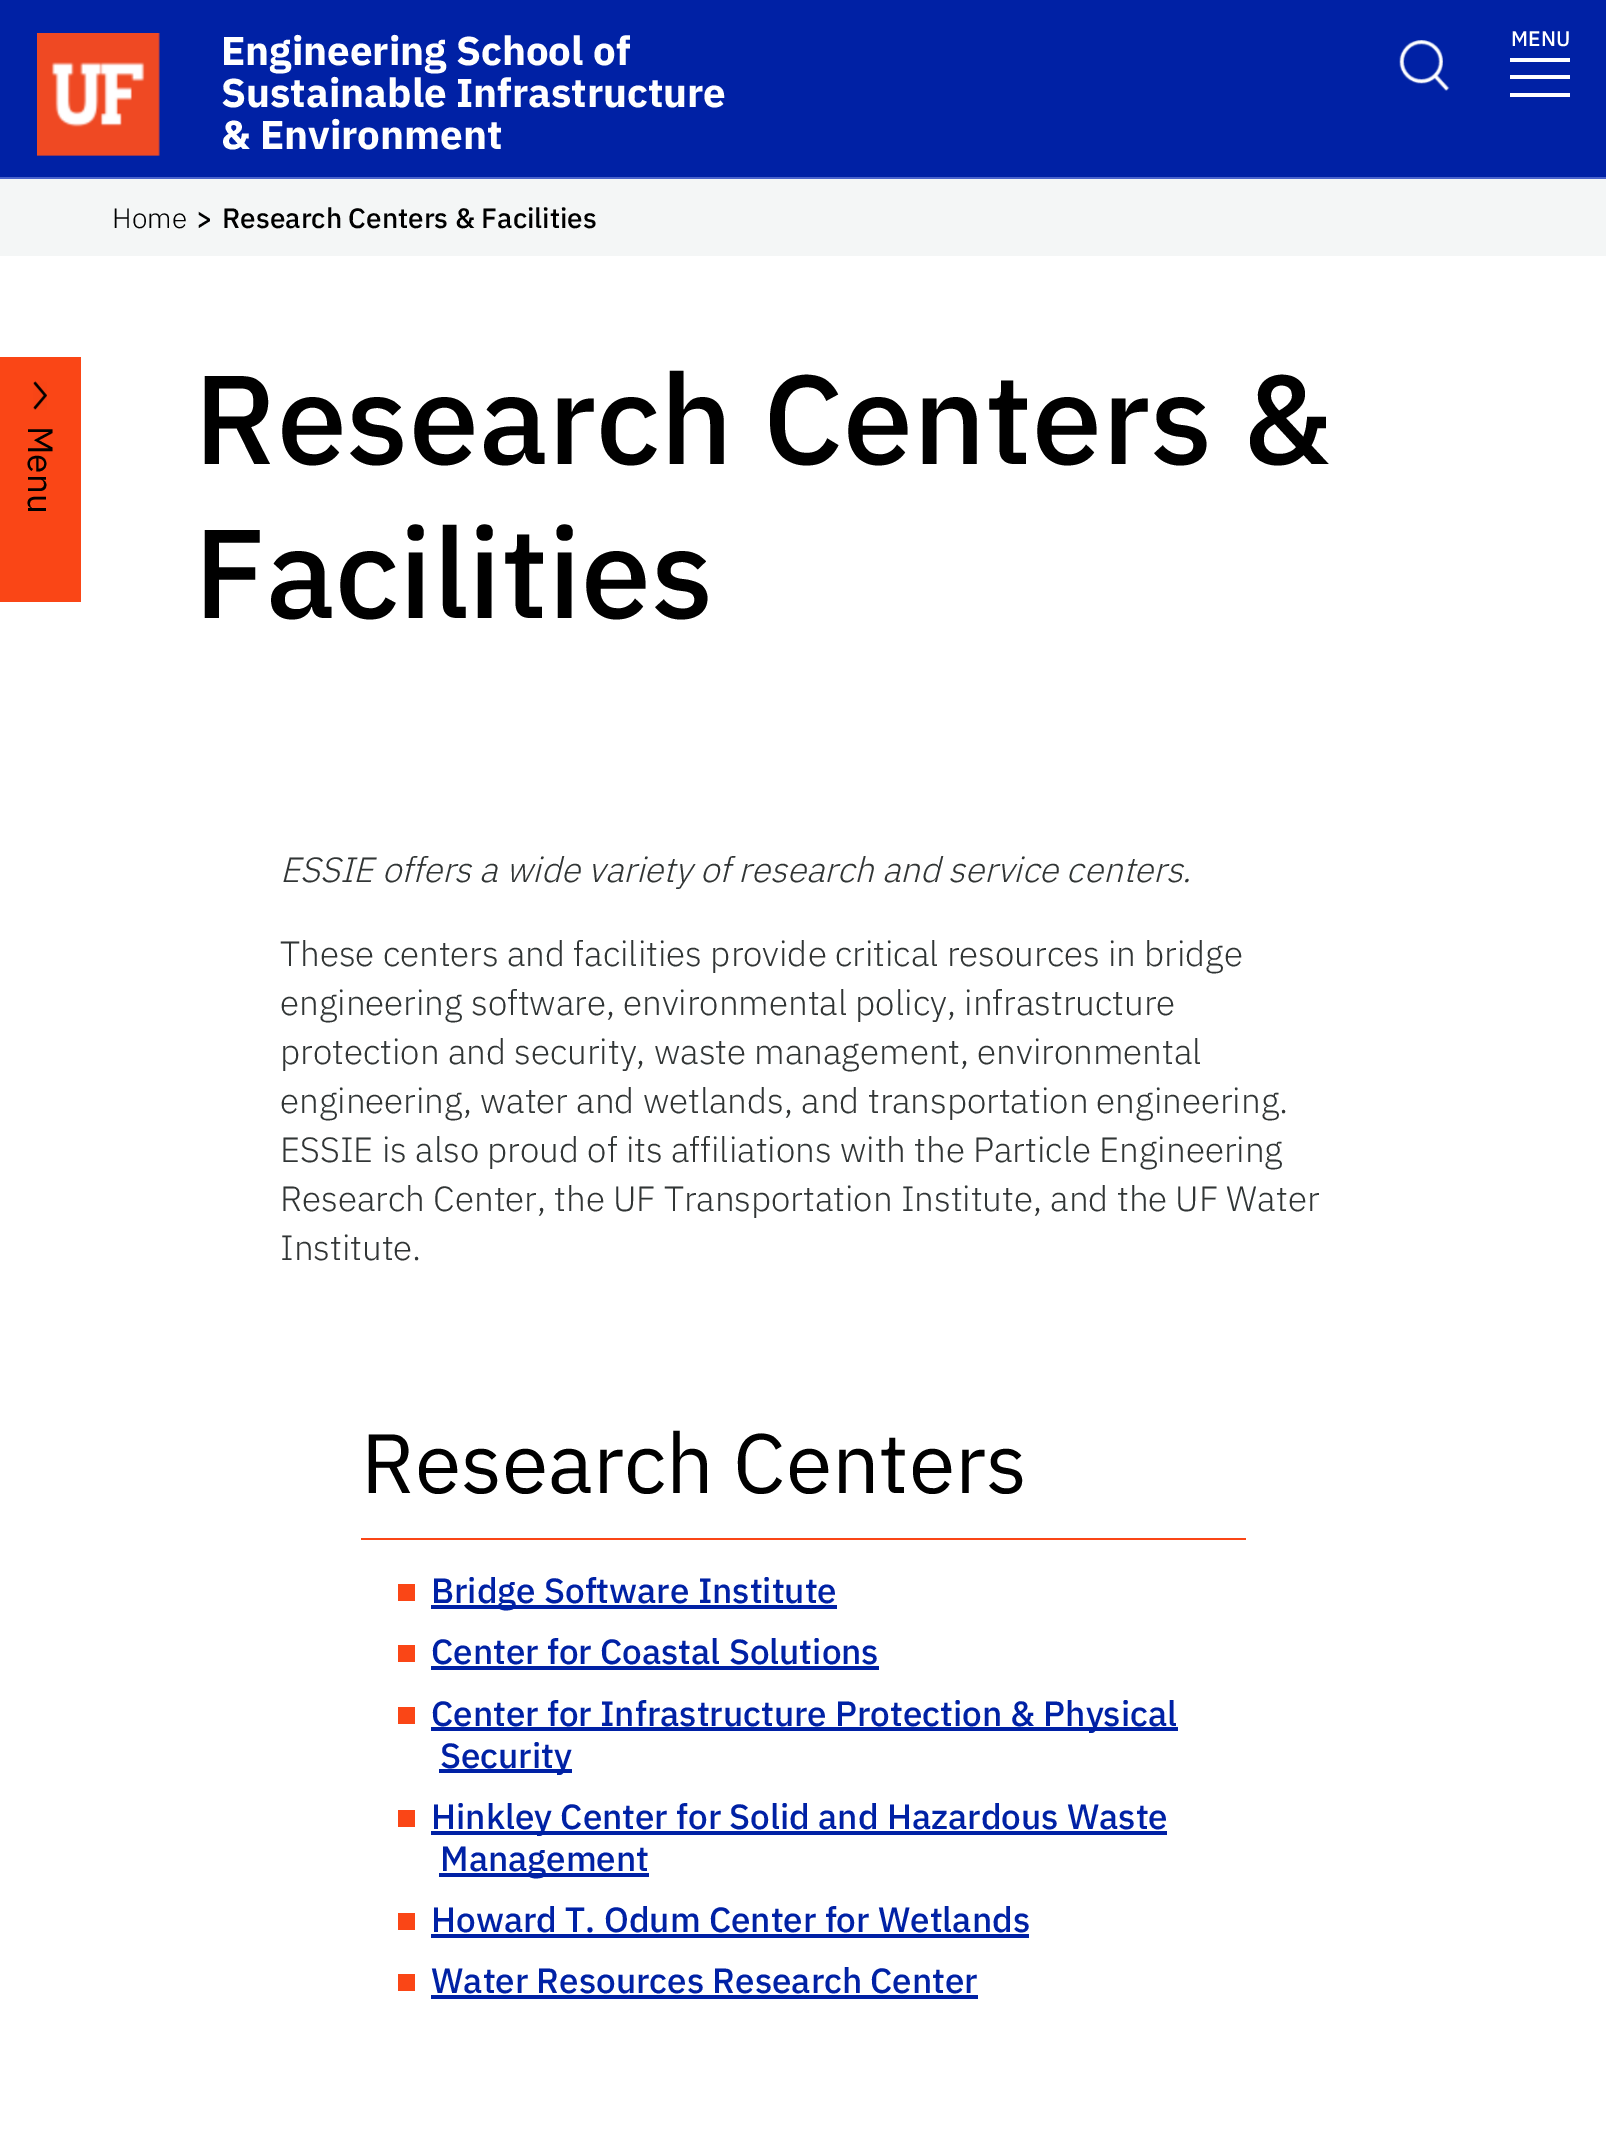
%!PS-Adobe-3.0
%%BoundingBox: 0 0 1606 2130
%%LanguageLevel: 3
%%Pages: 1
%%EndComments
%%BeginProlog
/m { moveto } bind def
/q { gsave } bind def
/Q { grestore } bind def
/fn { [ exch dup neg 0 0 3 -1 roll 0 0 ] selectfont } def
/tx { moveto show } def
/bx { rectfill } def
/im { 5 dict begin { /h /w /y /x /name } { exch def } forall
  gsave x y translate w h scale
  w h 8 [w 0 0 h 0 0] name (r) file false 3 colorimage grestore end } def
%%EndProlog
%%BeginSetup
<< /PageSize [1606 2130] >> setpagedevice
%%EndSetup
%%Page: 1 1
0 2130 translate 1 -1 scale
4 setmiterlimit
1 setgray
0 0 1606 2130 bx
0 0.129 0.647 setrgbcolor
0 0 1606 177 bx
0.29 0.388 0.796 setrgbcolor
0 177 1606 2 bx
(image0.raw) 37 33 123 123 im
/IBMPlexSans-Bold 40.25 fn
1 setgray
(Engineering School of) 221 65 tx
(Sustainable Infrastructure) 221 107 tx
(& Environment) 221 149 tx
(image1.raw) 1399 40 51 51 im
/IBMPlexSans-Medium 21 fn
(MENU) 1511 46 tx
1510 75 60 4 bx
1510 58 60 4 bx
1510 93 60 4 bx
0.957 0.965 0.965 setrgbcolor
0 179 1606 77 bx
/IBMPlexSans-Light 28 fn
0 setgray
(Home) 112 228 tx
/IBMPlexSans-Medium 28 fn
(>) 196 228 tx
(Research Centers & Facilities) 222 228 tx
0.98 0.275 0.086 setrgbcolor
0 357 81 245 bx
(image2.raw) 33 381 14 29 im
/IBMPlexSans-Regular 35 fn
0 setgray
q 28 426 translate 90 rotate 0 0 m (Menu) show Q
/IBMPlexSans-Medium 126 fn
(Research Centers &) 194 464 tx
(Facilities) 194 618 tx
/IBMPlexSans-LightItalic 35 fn
0.192 0.208 0.208 setrgbcolor
(ESSIE offers a wide variety of research and service centers.) 280 882 tx
/IBMPlexSans-Light 35 fn
(These centers and facilities provide critical resources in bridge) 280 966 tx
(engineering software, environmental policy, infrastructure) 280 1015 tx
(protection and security, waste management, environmental) 280 1064 tx
(engineering, water and wetlands, and transportation engineering.) 280 1113 tx
(ESSIE is also proud of its affiliations with the Particle Engineering) 280 1162 tx
(Research Center, the UF Transportation Institute, and the UF Water) 280 1211 tx
(Institute.) 280 1260 tx
/IBMPlexSans-Regular 84 fn
0 setgray
(Research Centers) 361 1493 tx
0.98 0.275 0.086 setrgbcolor
361 1538 885 2 bx
/LiberationSerif-Regular 35 fn
(■) 396 1603 tx
0 0.129 0.647 setrgbcolor
431 1605 406 4 bx
/IBMPlexSans-Medium 35 fn
(Bridge Software Institute) 431 1603 tx
/LiberationSerif-Regular 35 fn
0.98 0.275 0.086 setrgbcolor
(■) 396 1664 tx
/IBMPlexSans-Medium 35 fn
0 0.129 0.647 setrgbcolor
(Center for Coastal Solutions) 431 1664 tx
431 1666 448 4 bx
/LiberationSerif-Regular 35 fn
0.98 0.275 0.086 setrgbcolor
(■) 396 1726 tx
0 0.129 0.647 setrgbcolor
431 1727 747 4 bx
/IBMPlexSans-Medium 35 fn
(Center for Infrastructure Protection & Physical) 431 1726 tx
439 1769 133 4 bx
(Security) 440 1768 tx
/LiberationSerif-Regular 35 fn
0.98 0.275 0.086 setrgbcolor
(■) 396 1829 tx
0 0.129 0.647 setrgbcolor
431 1831 736 4 bx
/IBMPlexSans-Medium 35 fn
(Hinkley Center for Solid and Hazardous Waste) 431 1829 tx
439 1873 210 4 bx
(Management) 440 1871 tx
/LiberationSerif-Regular 35 fn
0.98 0.275 0.086 setrgbcolor
(■) 396 1932 tx
/IBMPlexSans-Medium 35 fn
0 0.129 0.647 setrgbcolor
(Howard T. Odum Center for Wetlands) 431 1932 tx
431 1934 598 4 bx
/LiberationSerif-Regular 35 fn
0.98 0.275 0.086 setrgbcolor
(■) 396 1993 tx
/IBMPlexSans-Medium 35 fn
0 0.129 0.647 setrgbcolor
(Water Resources Research Center) 431 1993 tx
431 1995 547 4 bx
showpage
%%EOF
